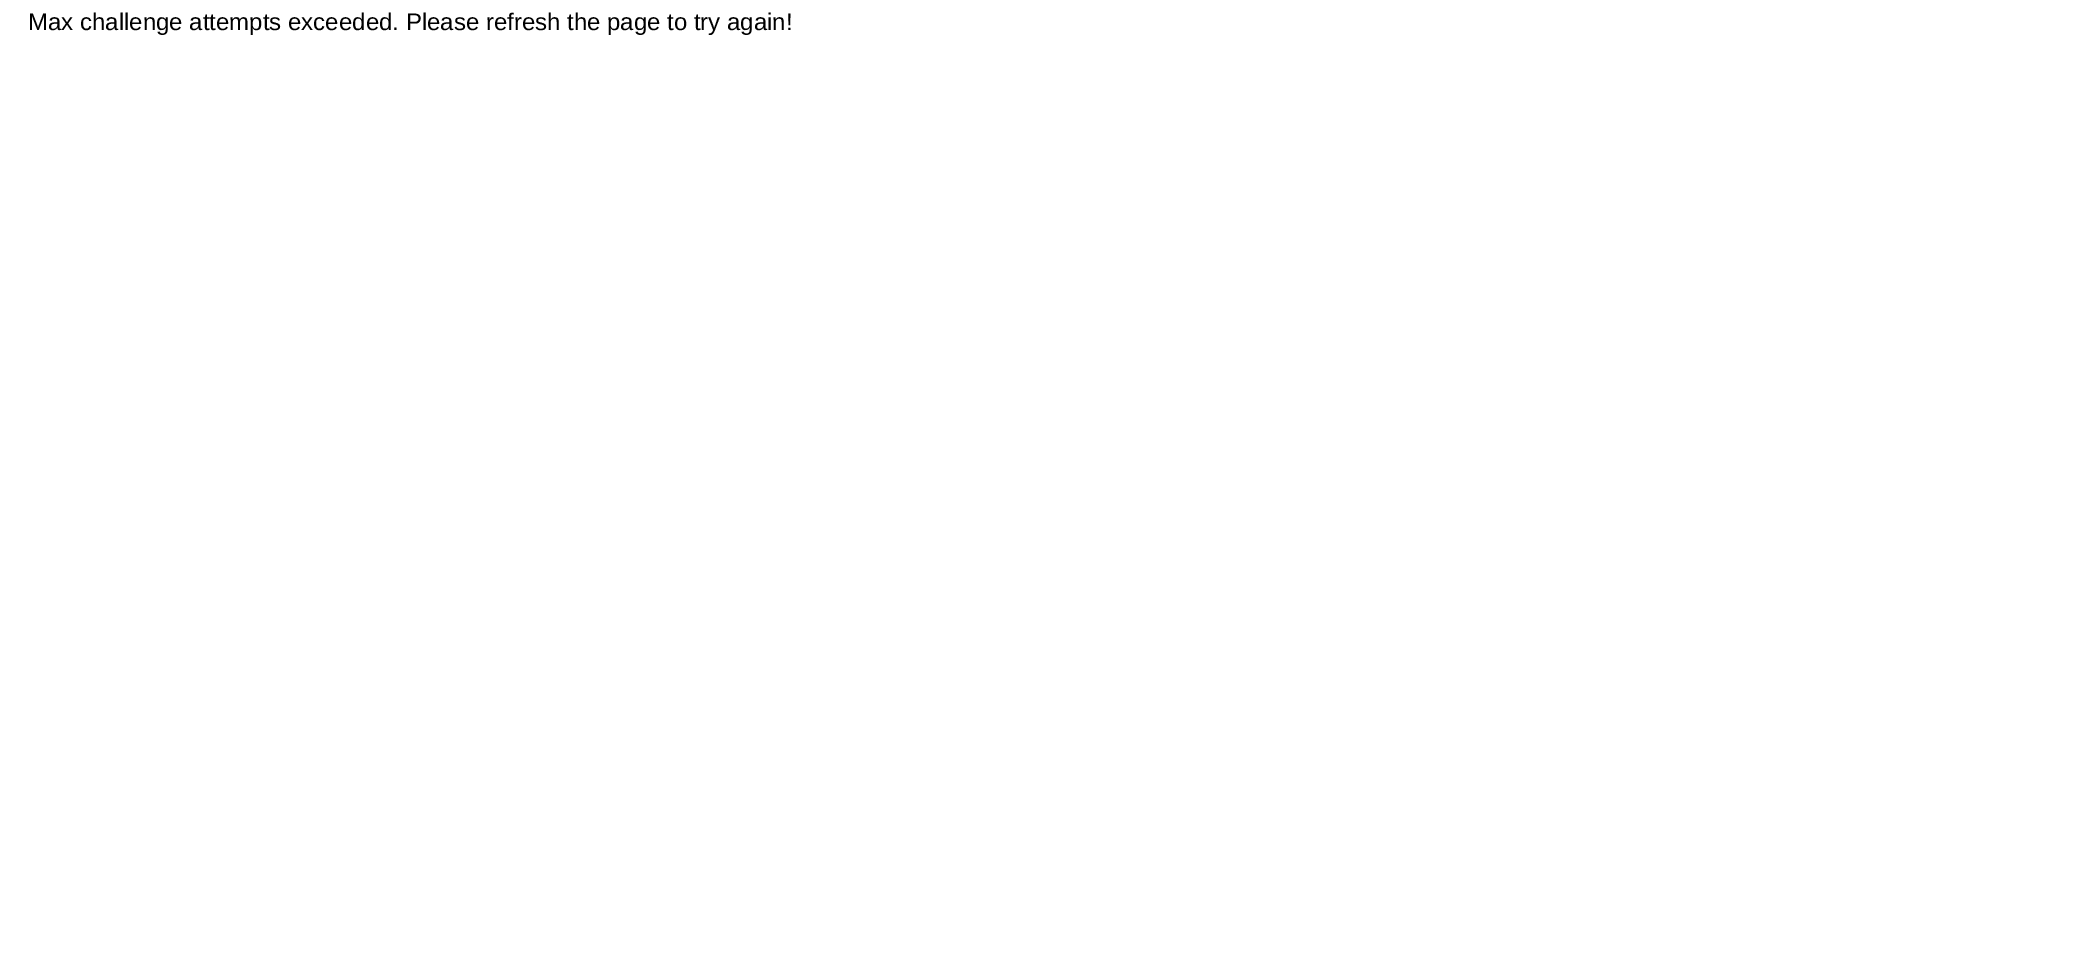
%!PS-Adobe-3.0
%%BoundingBox: 0 0 2088 966
%%LanguageLevel: 3
%%Pages: 1
%%EndComments
%%BeginProlog
/fn { [ exch dup neg 0 0 3 -1 roll 0 0 ] selectfont } def
/tx { moveto show } def
/bx { rectfill } def
%%EndProlog
%%BeginSetup
<< /PageSize [2088 966] >> setpagedevice
%%EndSetup
%%Page: 1 1
0 966 translate 1 -1 scale
4 setmiterlimit
1 setgray
0 0 2088 966 bx
/LiberationSans-Regular 24 fn
0 setgray
(Max challenge attempts exceeded. Please refresh the page to try again!) 28 30 tx
showpage
%%EOF
